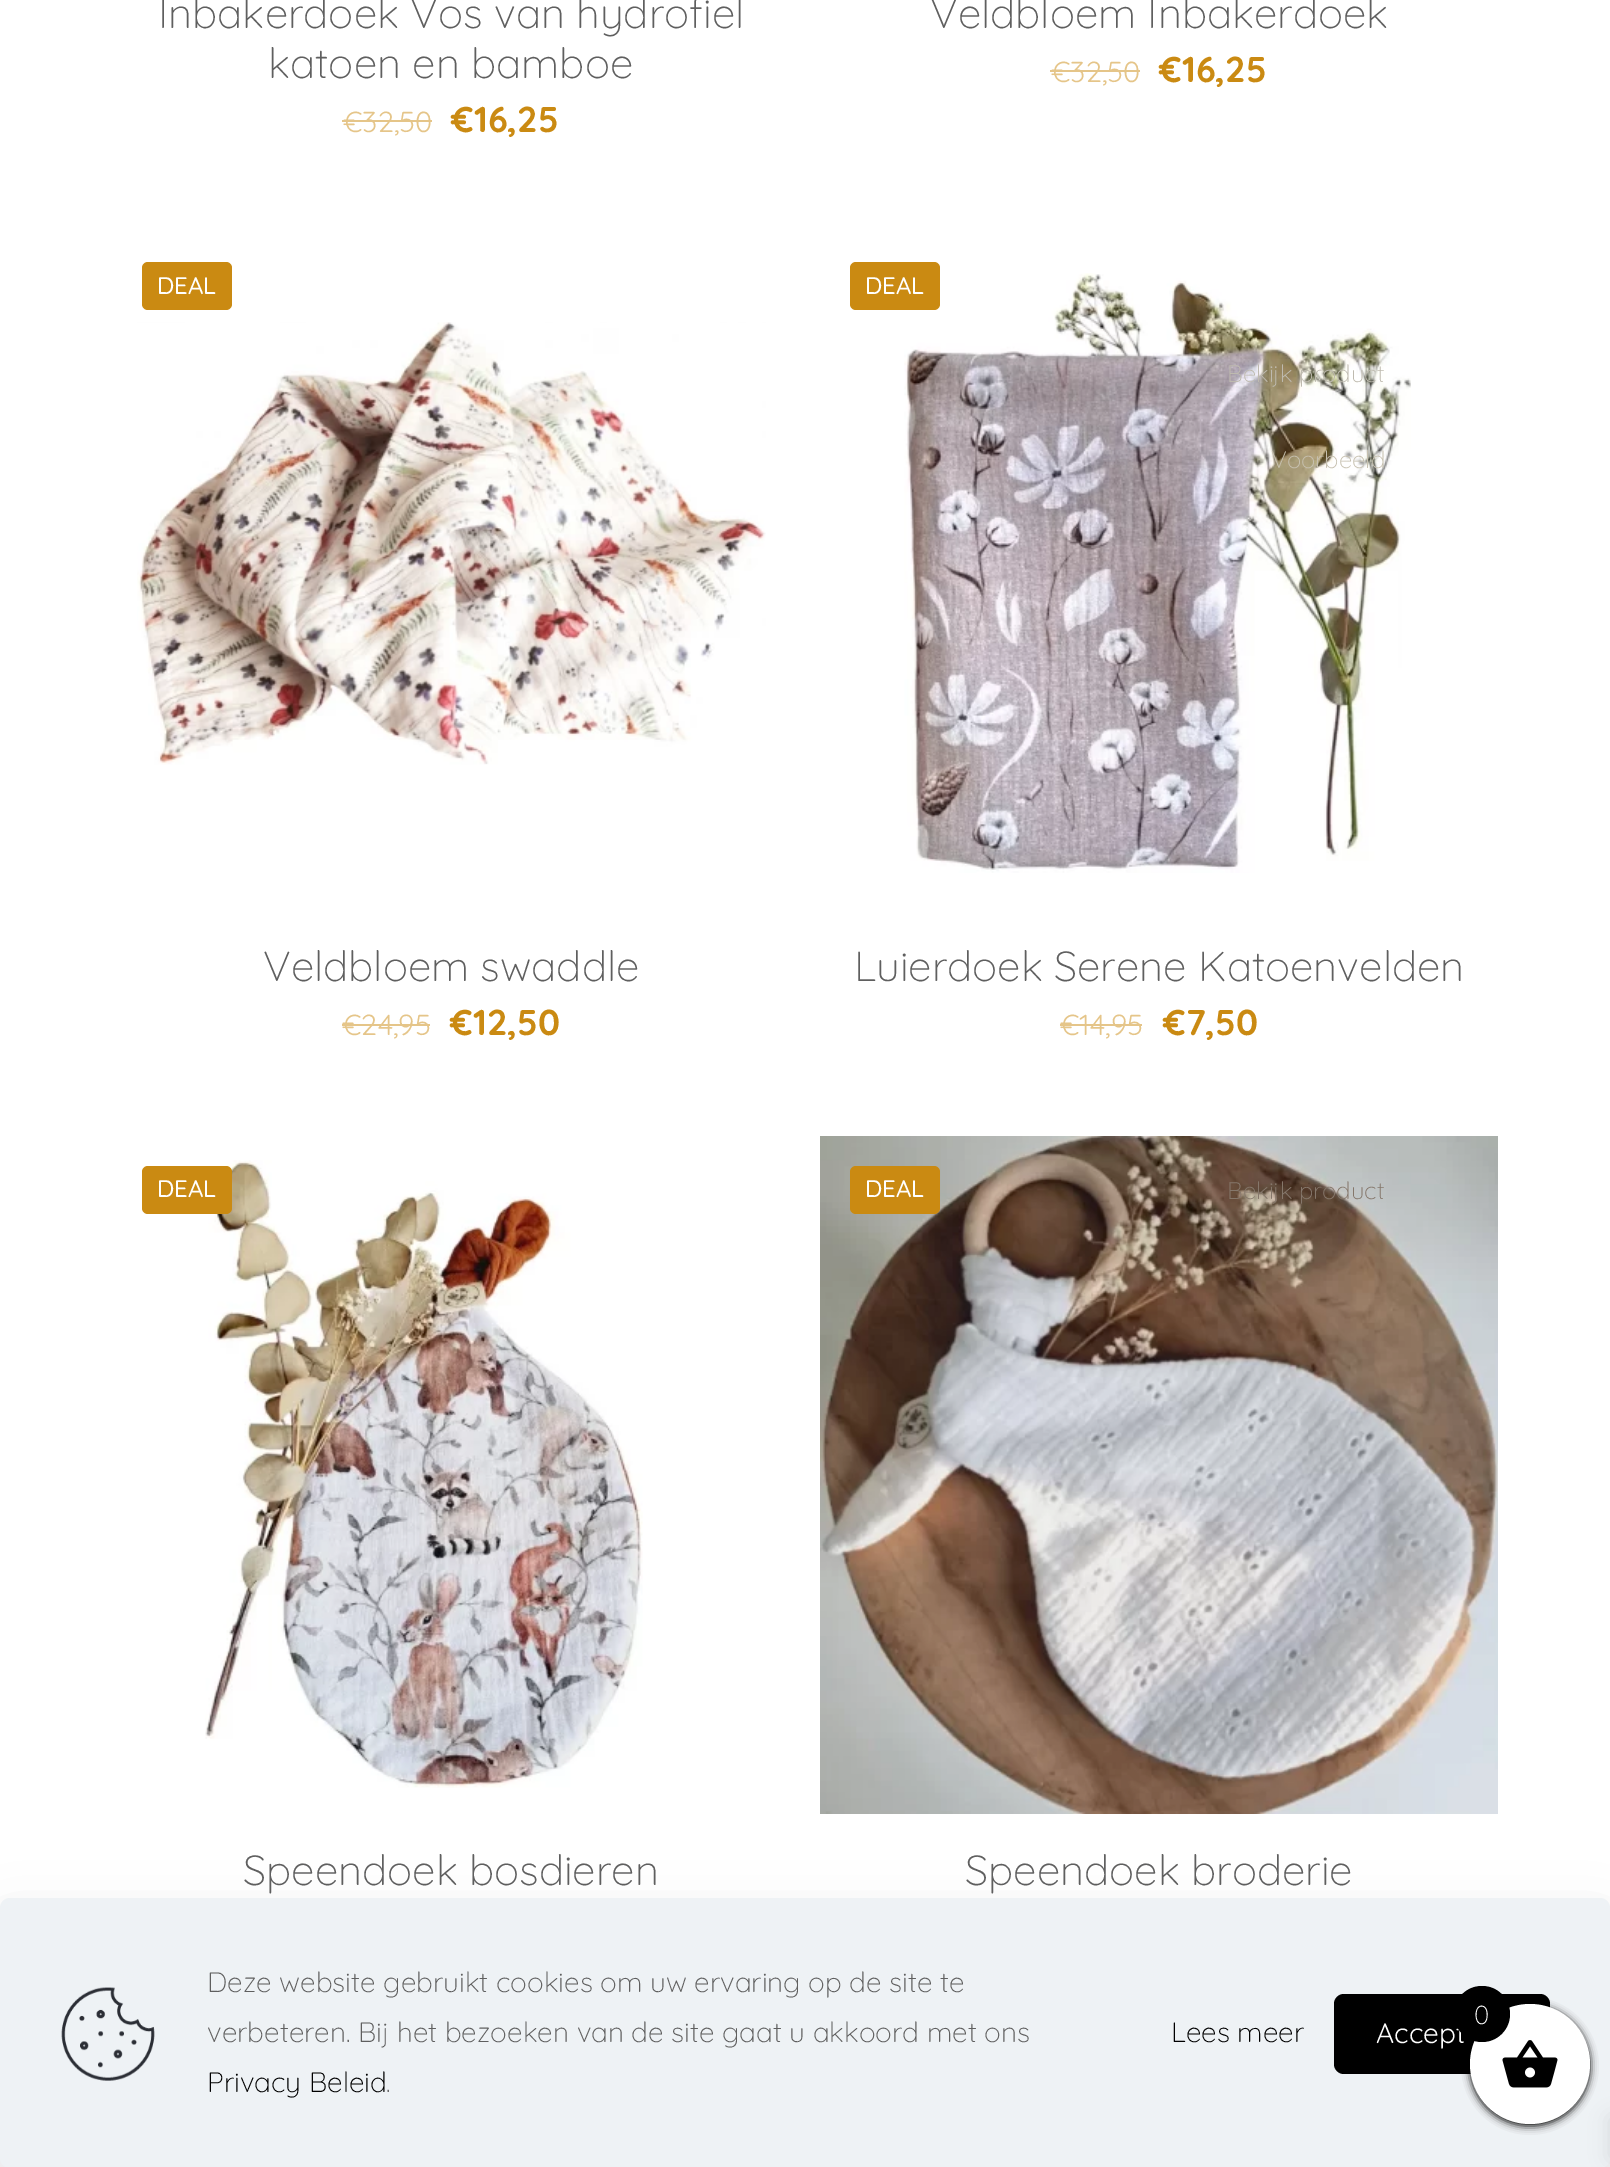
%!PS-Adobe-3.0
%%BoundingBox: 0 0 1610 2167
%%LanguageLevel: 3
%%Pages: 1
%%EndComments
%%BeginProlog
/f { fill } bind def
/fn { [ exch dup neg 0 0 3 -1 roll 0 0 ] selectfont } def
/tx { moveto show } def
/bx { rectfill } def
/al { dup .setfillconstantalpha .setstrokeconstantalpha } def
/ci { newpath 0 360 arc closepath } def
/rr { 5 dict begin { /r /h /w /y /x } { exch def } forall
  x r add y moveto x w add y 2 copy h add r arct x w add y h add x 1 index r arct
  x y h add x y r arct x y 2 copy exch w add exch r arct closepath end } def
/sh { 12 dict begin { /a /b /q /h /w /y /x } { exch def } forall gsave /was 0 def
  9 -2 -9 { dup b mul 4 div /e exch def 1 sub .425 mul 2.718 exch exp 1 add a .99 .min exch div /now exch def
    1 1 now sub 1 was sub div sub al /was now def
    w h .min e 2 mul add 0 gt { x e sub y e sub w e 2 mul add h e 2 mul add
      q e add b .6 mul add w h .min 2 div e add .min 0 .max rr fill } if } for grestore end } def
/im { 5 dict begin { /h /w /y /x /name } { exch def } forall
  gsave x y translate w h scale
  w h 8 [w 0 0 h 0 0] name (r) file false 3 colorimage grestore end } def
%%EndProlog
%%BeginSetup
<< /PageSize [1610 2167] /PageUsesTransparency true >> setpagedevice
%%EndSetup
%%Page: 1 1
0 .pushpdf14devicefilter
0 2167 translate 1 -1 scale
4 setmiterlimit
1 setgray
0 0 1610 2167 bx
/Quicksand-Light 42 fn
0.373 setgray
(Inbakerdoek Vos van hydrofiel) 158 28 tx
(katoen en bamboe) 268 78 tx
/Quicksand-Regular 29 fn
0.898 0.773 0.537 setrgbcolor
(€32,50) 343 132 tx
342 120 90 2 bx
/Quicksand-Bold 36 fn
0.792 0.541 0.071 setrgbcolor
(€16,25) 451 132 tx
/Quicksand-Light 42 fn
0.373 setgray
(Veldbloem Inbakerdoek) 930 28 tx
/Quicksand-Regular 29 fn
0.898 0.773 0.537 setrgbcolor
(€32,50) 1051 82 tx
1050 70 90 2 bx
/Quicksand-Bold 36 fn
0.792 0.541 0.071 setrgbcolor
(€16,25) 1159 82 tx
142 262 90 48 6 rr f
/Quicksand-Medium 24 fn
1 setgray
(DEAL) 157 294 tx
(image0.raw) 137 322 629 443 im
/Quicksand-Light 42 fn
0.373 setgray
(Veldbloem swaddle) 263 981 tx
/Quicksand-Regular 29 fn
0.898 0.773 0.537 setrgbcolor
(€24,95) 342 1035 tx
342 1024 88 2 bx
/Quicksand-Bold 36 fn
0.792 0.541 0.071 setrgbcolor
(€12,50) 450 1035 tx
(image1.raw) 904 273 507 600 im
850 262 90 48 6 rr f
/Quicksand-Medium 24 fn
1 setgray
(DEAL) 865 294 tx
/Quicksand-Light 24 fn
0.745 0.729 0.686 setrgbcolor
(Bekijk product) 1227 382 tx
0.776 0.753 0.686 setrgbcolor
(Voorbeeld) 1271 468 tx
/Quicksand-Light 42 fn
0.373 setgray
(Luierdoek Serene Katoenvelden) 854 981 tx
/Quicksand-Regular 29 fn
0.898 0.773 0.537 setrgbcolor
(€14,95) 1060 1035 tx
1060 1024 82 2 bx
/Quicksand-Bold 36 fn
0.792 0.541 0.071 setrgbcolor
(€7,50) 1163 1035 tx
(image2.raw) 205 1160 438 628 im
142 1166 90 48 6 rr f
/Quicksand-Medium 24 fn
1 setgray
(DEAL) 157 1197 tx
/Quicksand-Light 42 fn
0.373 setgray
(Speendoek bosdieren) 243 1885 tx
(image3.raw) 820 1136 678 678 im
0.792 0.541 0.071 setrgbcolor
850 1166 90 48 6 rr f
/Quicksand-Medium 24 fn
1 setgray
(DEAL) 865 1197 tx
/Quicksand-Light 24 fn
0.522 0.467 0.42 setrgbcolor
(Bekijk product) 1227 1199 tx
/Quicksand-Light 42 fn
0.373 setgray
(Speendoek broderie) 965 1885 tx
0.004 0.027 0.153 setrgbcolor
0 1928 1610 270 10 30 0.13 sh
0.933 0.949 0.961 setrgbcolor
0 1898 1610 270 10 rr f
(image4.raw) 61 1987 94 94 im
/Quicksand-Light 28 fn
0.373 setgray
(Deze website gebruikt cookies om uw ervaring op de site te) 207 1992 tx
(verbeteren. Bij het bezoeken van de site gaat u akkoord met ons) 207 2042 tx
0 setgray
(Privacy Beleid) 207 2092 tx
0.373 setgray
(.) 386 2092 tx
0 setgray
(Lees meer) 1171 2042 tx
1334 1994 216 80 10 rr f
/Quicksand-Regular 28 fn
1 setgray
(Accept) 1376 2043 tx
0 setgray
1470 2006 120 120 60 4 1 sh
1610 2118 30 40 0 10 0.1 sh
1 setgray
1530 2064 60 ci f
(image5.raw) 1502 2040 56 48 im
0 setgray
1482 2014 28 ci f
/Quicksand-Light 26 fn
1 setgray
(0) 1474 2024 tx
.poppdf14devicefilter showpage
%%EOF
